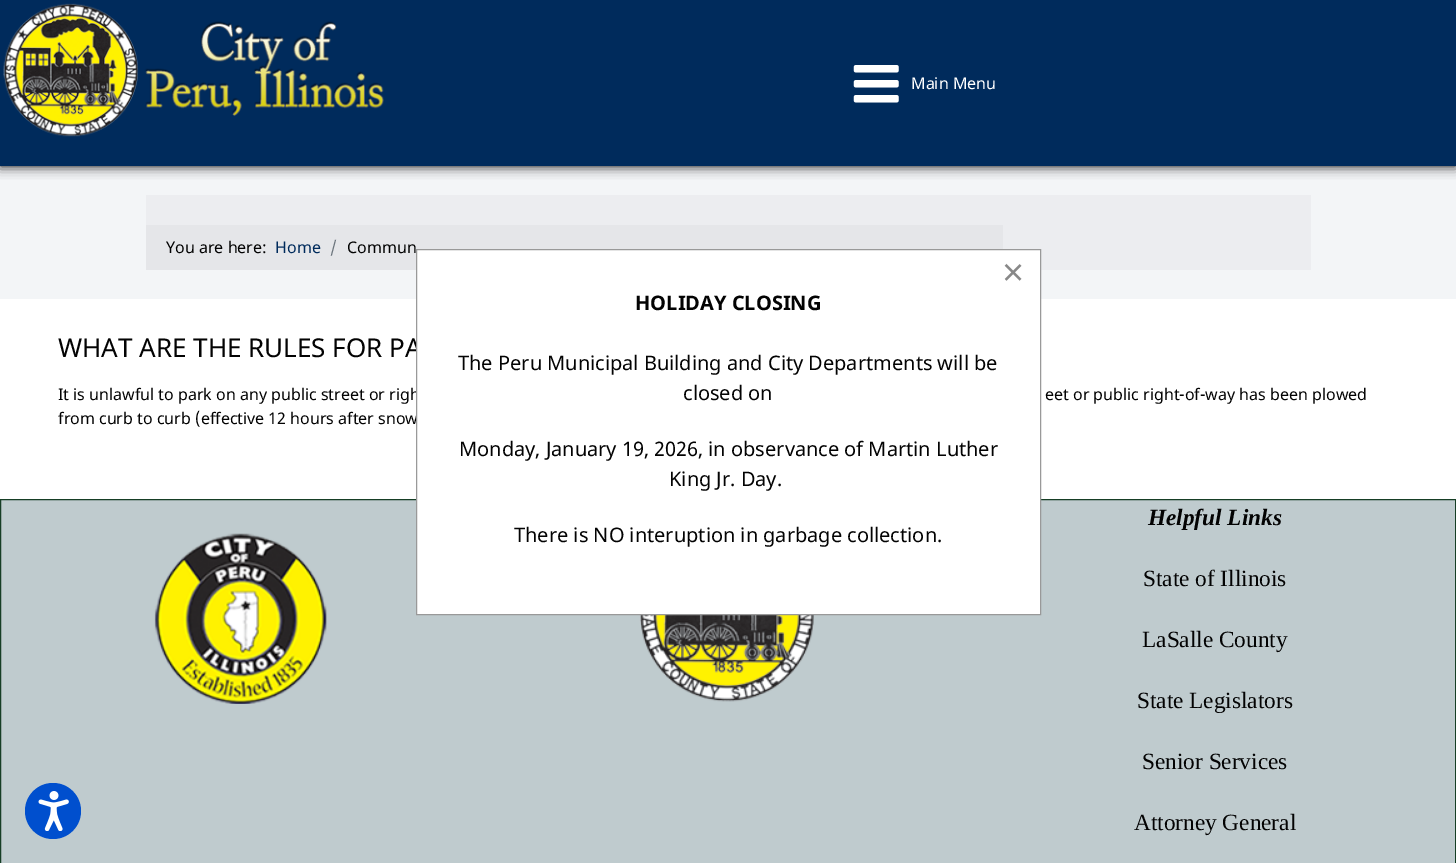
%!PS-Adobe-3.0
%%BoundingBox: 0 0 1456 863
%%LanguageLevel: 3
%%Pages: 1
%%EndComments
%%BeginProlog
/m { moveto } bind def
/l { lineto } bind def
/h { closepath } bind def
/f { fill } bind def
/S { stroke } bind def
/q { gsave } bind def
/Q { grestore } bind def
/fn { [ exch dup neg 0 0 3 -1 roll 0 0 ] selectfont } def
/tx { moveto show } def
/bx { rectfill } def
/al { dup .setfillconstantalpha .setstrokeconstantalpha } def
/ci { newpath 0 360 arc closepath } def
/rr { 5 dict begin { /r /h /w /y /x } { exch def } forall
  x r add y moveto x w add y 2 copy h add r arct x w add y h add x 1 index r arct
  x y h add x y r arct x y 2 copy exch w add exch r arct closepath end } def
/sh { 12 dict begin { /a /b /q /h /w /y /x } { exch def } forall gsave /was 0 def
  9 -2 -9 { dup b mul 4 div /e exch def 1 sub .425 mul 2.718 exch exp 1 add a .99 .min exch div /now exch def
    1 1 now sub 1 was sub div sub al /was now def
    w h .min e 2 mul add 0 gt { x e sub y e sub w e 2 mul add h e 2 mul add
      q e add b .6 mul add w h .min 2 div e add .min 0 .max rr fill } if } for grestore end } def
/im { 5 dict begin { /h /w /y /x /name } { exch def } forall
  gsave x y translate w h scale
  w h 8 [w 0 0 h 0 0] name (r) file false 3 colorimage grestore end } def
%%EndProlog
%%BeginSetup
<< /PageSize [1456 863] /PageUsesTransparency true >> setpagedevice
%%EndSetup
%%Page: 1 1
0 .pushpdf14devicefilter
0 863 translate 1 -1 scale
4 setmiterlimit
1 setgray
0 0 1456 863 bx
0.749 0.796 0.808 setrgbcolor
0.5 499.5 m 1455.5 499.5 l 1455.5 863.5 l 0.5 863.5 l h q f Q
0.086 0.243 0.145 setrgbcolor
S
0 0.31 0.808 setrgbcolor
53 811 28 ci f
(image0.raw) 38 791 31 40 im
0.953 0.961 0.969 setrgbcolor
0 166 1456 133 bx
0 setgray
0 0 1456 166 0 6 1 sh
0 0.169 0.361 setrgbcolor
0 0 1456 166 bx
(image1.raw) 3 3 381 134 im
(image2.raw) 853 65 46 38 im
/NotoSans-Regular 16 fn
1 setgray
(Main Menu) 911 89 tx
0.925 0.929 0.941 setrgbcolor
146 195 1165 75 bx
0.898 0.902 0.914 setrgbcolor
146 225 857 45 bx
0.012 setgray
(You are here:) 166 253 tx
0 0.169 0.361 setrgbcolor
(Home) 275 253 tx
0.424 0.459 0.49 setrgbcolor
(/) 330 253 tx
0.012 setgray
(Commun) 347 253 tx
/NotoSans-Regular 26 fn
(WHAT ARE THE RULES FOR PA) 58 357 tx
/NotoSans-Regular 16 fn
(It is unlawful to park on any public street or righ) 58 400 tx
(eet or public right-of-way has been plowed) 1045 400 tx
(from curb to curb \(effective 12 hours after snow) 58 424 tx
(image3.raw) 154 533 173 171 im
(image4.raw) 639 615 175 87 im
/LiberationSerif-BoldItalic 23.25 fn
(Helpful Links) 1148 525 tx
/LiberationSerif-Regular 23.25 fn
(State of Illinois) 1143 586 tx
(LaSalle County) 1142 647 tx
(State Legislators) 1137 708 tx
(Senior Services) 1142 769 tx
(Attorney General) 1134 830 tx
1 setgray
416.5 249.5 m 1040.5 249.5 l 1040.5 614.5 l 416.5 614.5 l h q f Q
0.6 setgray
S
/LiberationSans-Regular 38 fn
0.533 setgray
(×) 1002 285 tx
/NotoSans-Bold 20 fn
0.012 setgray
(HOLIDAY CLOSING) 635 310 tx
/NotoSans-Regular 20 fn
(The Peru Municipal Building and City Departments will be) 458 370 tx
(closed on) 683 400 tx
(Monday, January 19, 2026, in observance of Martin Luther) 459 456 tx
(King Jr. Day.) 669 486 tx
(There is NO interuption in garbage collection.) 514 542 tx
.poppdf14devicefilter showpage
%%EOF
